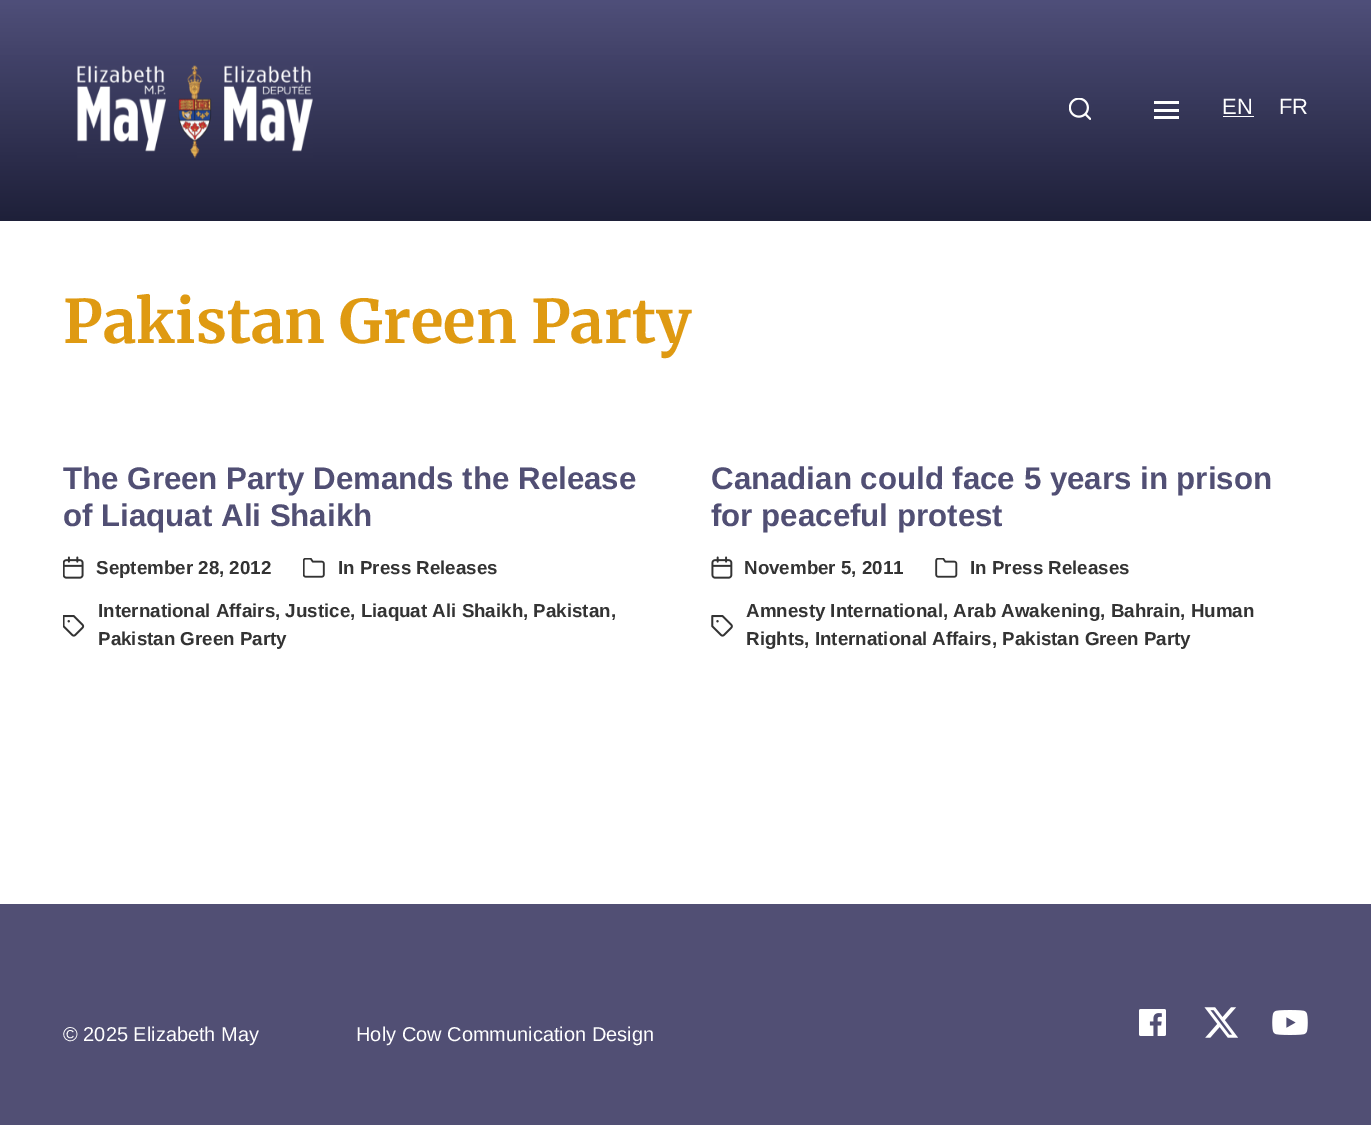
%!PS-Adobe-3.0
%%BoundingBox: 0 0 1371 1125
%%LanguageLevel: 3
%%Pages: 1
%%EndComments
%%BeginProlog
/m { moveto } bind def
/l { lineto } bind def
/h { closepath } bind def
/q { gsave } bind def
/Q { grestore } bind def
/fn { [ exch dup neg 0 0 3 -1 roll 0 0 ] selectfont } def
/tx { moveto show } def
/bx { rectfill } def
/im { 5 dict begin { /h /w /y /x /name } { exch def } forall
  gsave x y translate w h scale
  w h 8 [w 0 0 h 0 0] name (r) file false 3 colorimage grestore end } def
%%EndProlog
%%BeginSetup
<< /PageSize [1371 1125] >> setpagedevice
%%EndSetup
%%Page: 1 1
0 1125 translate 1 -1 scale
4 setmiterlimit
1 setgray
0 0 1371 1125 bx
q 0 0 m 1371 0 l 1371 221 l 0 221 l h clip newpath
<< /ShadingType 2 /ColorSpace /DeviceRGB /Coords [686 -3.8 686 221] /Extend [true true] /Function << /FunctionType 3 /Domain [0 1] /Functions [<< /FunctionType 2 /Domain [0 1] /C0 [0.314 0.314 0.482] /C1 [0.263 0.263 0.416] /N 1 >> << /FunctionType 2 /Domain [0 1] /C0 [0.263 0.263 0.416] /C1 [0.212 0.216 0.349] /N 1 >> << /FunctionType 2 /Domain [0 1] /C0 [0.212 0.216 0.349] /C1 [0.165 0.169 0.286] /N 1 >> << /FunctionType 2 /Domain [0 1] /C0 [0.165 0.169 0.286] /C1 [0.118 0.125 0.224] /N 1 >>] /Bounds [0.25 0.5 0.75] /Encode [0 1 0 1 0 1 0 1] >> >> shfill Q
(image0.raw) 77 65 236 94 im
(image1.raw) 1069 98 22 22 im
1154 101 25 3 bx
1154 109 25 3 bx
1154 116 25 3 bx
/LiberationSans-Regular 22 fn
(EN) 1222 114 tx
1223 116 31 1 bx
(FR) 1279 114 tx
/Merriweather-Bold 60 fn
0.875 0.604 0.071 setrgbcolor
(Pakistan Green Party) 63 343 tx
/LiberationSans-Bold 31.25 fn
0.318 0.31 0.455 setrgbcolor
(The Green Party Demands the Release) 63 489 tx
(of Liaquat Ali Shaikh) 63 526 tx
(image2.raw) 63 556 21 23 im
/LiberationSans-Bold 18.75 fn
0.2 setgray
(September 28, 2012) 96 574 tx
(image3.raw) 303 558 22 20 im
(In Press Releases) 338 574 tx
(image4.raw) 63 615 22 22 im
(International Affairs, Justice, Liaquat Ali Shaikh, Pakistan,) 98 617 tx
(Pakistan Green Party) 98 645 tx
/LiberationSans-Bold 31.25 fn
0.318 0.31 0.455 setrgbcolor
(Canadian could face 5 years in prison) 711 489 tx
(for peaceful protest) 711 526 tx
(image5.raw) 711 556 22 23 im
/LiberationSans-Bold 18.75 fn
0.2 setgray
(November 5, 2011) 744 574 tx
(image6.raw) 935 558 23 20 im
(In Press Releases) 970 574 tx
(image7.raw) 711 615 22 22 im
(Amnesty International, Arab Awakening, Bahrain, Human) 746 617 tx
(Rights, International Affairs, Pakistan Green Party) 746 645 tx
0.318 0.31 0.455 setrgbcolor
0 904 1371 221 bx
/LiberationSans-Regular 20 fn
1 setgray
(© 2025 Elizabeth May) 63 1041 tx
(Holy Cow Communication Design) 356 1041 tx
(image8.raw) 1139 1009 27 27 im
(image9.raw) 1204 1007 34 31 im
(image10.raw) 1272 1010 36 25 im
showpage
%%EOF
